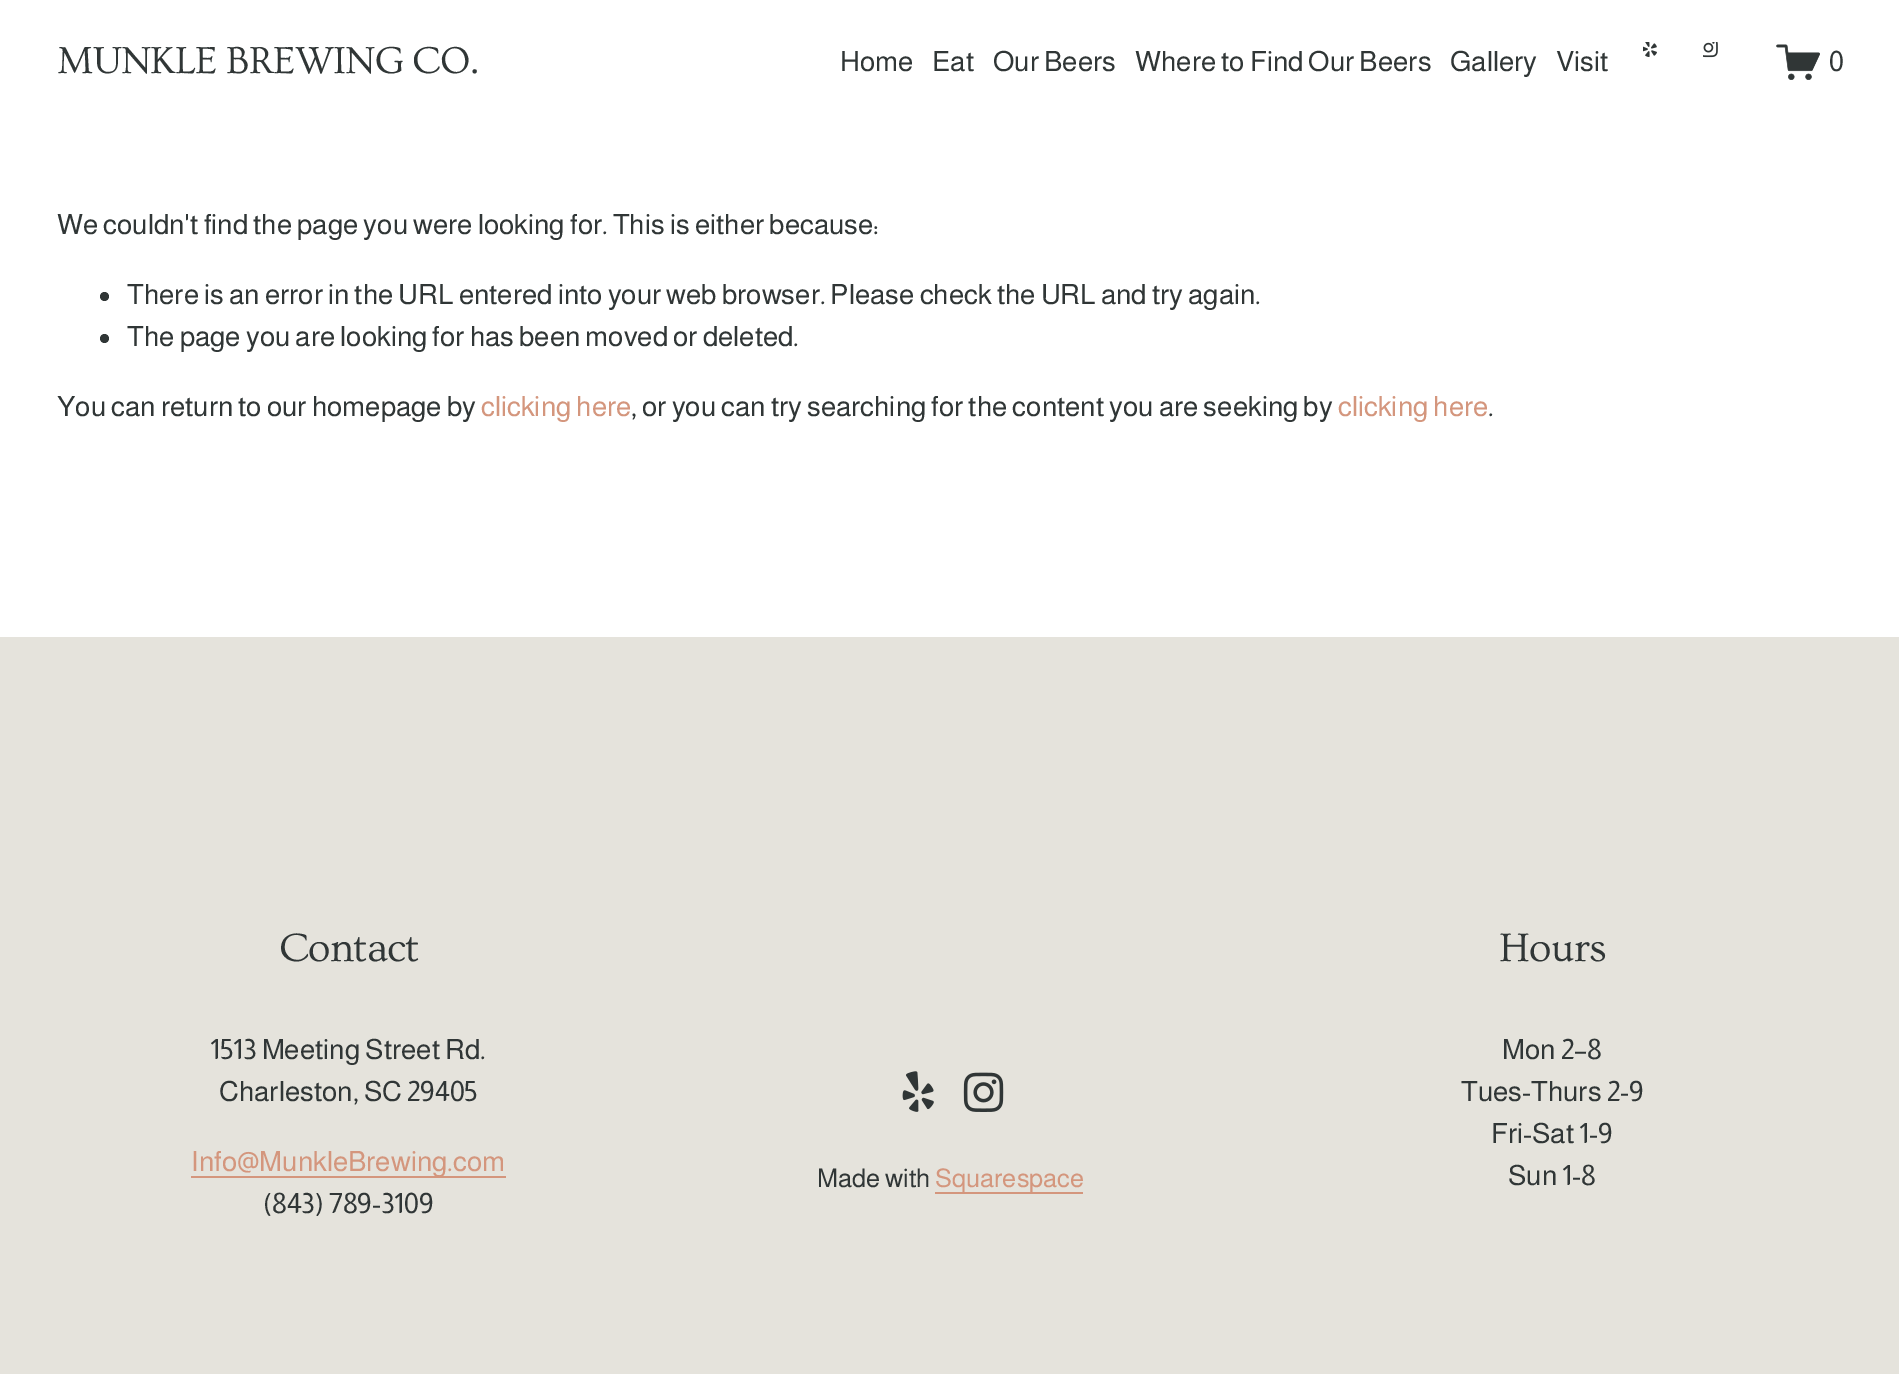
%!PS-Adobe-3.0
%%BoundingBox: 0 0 1899 1374
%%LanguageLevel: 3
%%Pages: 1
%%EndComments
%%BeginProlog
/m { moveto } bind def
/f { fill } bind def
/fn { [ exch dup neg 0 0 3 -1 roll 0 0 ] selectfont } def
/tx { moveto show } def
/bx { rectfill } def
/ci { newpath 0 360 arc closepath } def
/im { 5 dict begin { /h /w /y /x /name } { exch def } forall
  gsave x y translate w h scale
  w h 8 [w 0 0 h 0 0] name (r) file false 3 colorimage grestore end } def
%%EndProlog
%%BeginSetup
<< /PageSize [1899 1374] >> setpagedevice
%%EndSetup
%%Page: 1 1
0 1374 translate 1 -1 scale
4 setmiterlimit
1 setgray
0 0 1899 1374 bx
/Ovo-Regular 39.4 fn
0.188 0.212 0.212 setrgbcolor
57 73 m -0.75 0 (MUNKLE BREWING CO.) ashow
/Almarai-Regular 28 fn
(Home) 840 71 tx
(Eat) 932 71 tx
(Our Beers) 993 71 tx
(Where to Find Our Beers) 1135 71 tx
(Gallery) 1450 71 tx
(Visit) 1556 71 tx
(image0.raw) 1643 42 14 15 im
(image1.raw) 1703 42 15 16 im
(image2.raw) 1776 44 44 36 im
(0) 1829 71 tx
(We couldn't find the page you were looking for. This is either because:) 57 234 tx
104.5 296.5 4.5 ci f
(There is an error in the URL entered into your web browser. Please check the URL and try again.) 127 304 tx
104.5 338.5 4.5 ci f
(The page you are looking for has been moved or deleted.) 127 346 tx
(You can return to our homepage by) 57 416 tx
0.831 0.588 0.49 setrgbcolor
(clicking here) 481 416 tx
0.188 0.212 0.212 setrgbcolor
(, or you can try searching for the content you are seeking by) 631 416 tx
0.831 0.588 0.49 setrgbcolor
(clicking here) 1338 416 tx
0.188 0.212 0.212 setrgbcolor
(.) 1488 416 tx
0.898 0.89 0.863 setrgbcolor
0 637 1899 737 bx
/Ovo-Regular 41.5 fn
0.188 0.212 0.212 setrgbcolor
279 961 m -0.75 0 (Contact) ashow
/Almarai-Regular 28 fn
(1513 Meeting Street Rd.) 210 1059 tx
(Charleston, SC 29405) 219 1101 tx
0.831 0.588 0.49 setrgbcolor
191 1176 315 2 bx
(Info@MunkleBrewing.com) 191 1171 tx
0.188 0.212 0.212 setrgbcolor
(\(843\) 789-3109) 263 1213 tx
(image3.raw) 902 1071 32 41 im
(image4.raw) 963 1072 41 40 im
/Ovo-Regular 41.5 fn
1499 961 m -0.75 0 (Hours) ashow
/Almarai-Regular 28 fn
(Mon 2–8) 1502 1059 tx
(Tues-Thurs 2-9) 1461 1101 tx
(Fri-Sat 1-9) 1491 1143 tx
(Sun 1-8) 1508 1185 tx
/Almarai-Regular 25.75 fn
(Made with) 817 1187 tx
0.831 0.588 0.49 setrgbcolor
935 1192 148 2 bx
(Squarespace) 935 1187 tx
showpage
%%EOF
